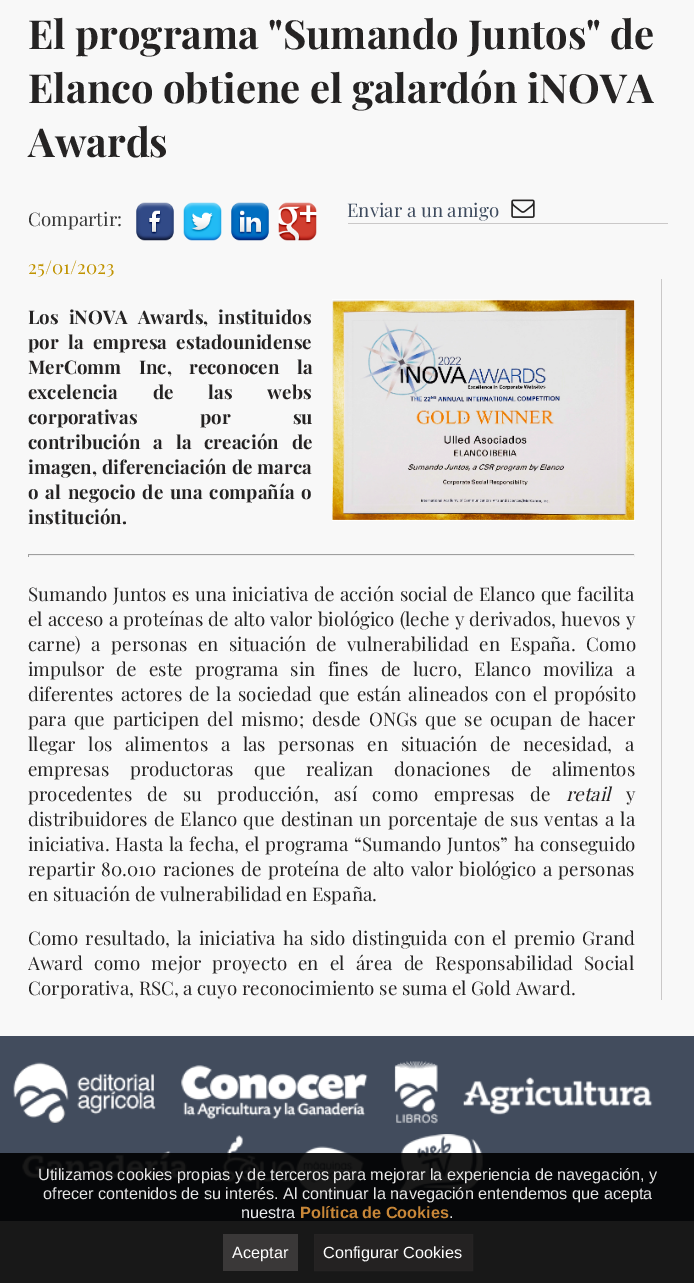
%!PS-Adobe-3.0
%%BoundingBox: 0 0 694 1283
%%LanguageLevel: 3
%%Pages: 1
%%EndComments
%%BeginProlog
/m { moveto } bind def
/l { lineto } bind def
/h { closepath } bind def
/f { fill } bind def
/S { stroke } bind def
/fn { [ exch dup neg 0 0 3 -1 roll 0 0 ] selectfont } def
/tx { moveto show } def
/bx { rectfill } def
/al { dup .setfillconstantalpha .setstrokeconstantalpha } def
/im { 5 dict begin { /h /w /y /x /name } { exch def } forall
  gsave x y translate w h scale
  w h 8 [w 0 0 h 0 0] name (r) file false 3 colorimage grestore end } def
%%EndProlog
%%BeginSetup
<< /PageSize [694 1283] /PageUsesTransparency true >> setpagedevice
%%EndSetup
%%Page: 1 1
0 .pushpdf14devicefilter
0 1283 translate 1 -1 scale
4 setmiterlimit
0.973 setgray
0 0 694 1283 bx
/PlayfairDisplay-Bold 40 fn
0.145 0.137 0.137 setrgbcolor
(El programa "Sumando Juntos" de) 28 49 tx
(Elanco obtiene el galardón iNOVA) 28 103 tx
(Awards) 28 157 tx
/PlayfairDisplay-Regular 18.75 fn
0.212 setgray
(Compartir:) 28 226 tx
(image0.raw) 136 202 38 39 im
(image1.raw) 183 202 39 39 im
(image2.raw) 231 202 38 39 im
(image3.raw) 278 202 39 39 im
0.792 0.784 0.784 setrgbcolor
348 223 320 1 bx
0.239 0.29 0.365 setrgbcolor
(Enviar a un amigo) 347 217 tx
(image4.raw) 511 199 24 19 im
0.753 0.576 0 setrgbcolor
(25/01/2023) 28 274 tx
0.792 0.784 0.784 setrgbcolor
661 279 1 721 bx
(image5.raw) 332 299 303 222 im
/PlayfairDisplay-Bold 18.75 fn
0.145 0.137 0.137 setrgbcolor
28 324 m 5.5 0 32 (Los iNOVA Awards, instituidos) widthshow
28 349 m 5 0 32 (por la empresa estadounidense) widthshow
28 374 m 13 0 32 (MerComm Inc, reconocen la) widthshow
28 399 m 30.5 0 32 (excelencia de las webs) widthshow
28 424 m 58 0 32 (corporativas por su) widthshow
28 449 m 8.5 0 32 (contribución a la creación de) widthshow
28 474 m 0.5 0 32 (imagen, diferenciación de marca) widthshow
28 499 m 2.5 0 32 (o al negocio de una compañía o) widthshow
(institución.) 28 524 tx
0.624 setgray
28 554 607 1 bx
0.933 setgray
634 554 1 3 bx
28 555 607 1 bx
0.624 setgray
28 554 1 3 bx
/PlayfairDisplay-Regular 18.75 fn
0.145 0.137 0.137 setrgbcolor
28 601 m 0.75 0 32 (Sumando Juntos es una iniciativa de acción social de Elanco que facilita) widthshow
28 626 m 0.4 0 32 (el acceso a proteínas de alto valor biológico \(leche y derivados, huevos y) widthshow
28 651 m 5.75 0 32 (carne\) a personas en situación de vulnerabilidad en España. Como) widthshow
28 676 m 7.5 0 32 (impulsor de este programa sin fines de lucro, Elanco moviliza a) widthshow
28 701 m 2.25 0 32 (diferentes actores de la sociedad que están alineados con el propósito) widthshow
28 726 m 3.25 0 32 (para que participen del mismo; desde ONGs que se ocupan de hacer) widthshow
28 751 m 8 0 32 (llegar los alimentos a las personas en situación de necesidad, a) widthshow
28 776 m 16.25 0 32 (empresas productoras que realizan donaciones de alimentos) widthshow
28 801 m 10.5 0 32 (procedentes de su producción, así como empresas de) widthshow
/PlayfairDisplay-Italic 18.75 fn
(retail) 566 801 tx
/PlayfairDisplay-Regular 18.75 fn
(y) 626 801 tx
28 826 m 1.6 0 32 (distribuidores de Elanco que destinan un porcentaje de sus ventas a la) widthshow
28 851 m 1 0 32 (iniciativa. Hasta la fecha, el programa “Sumando Juntos” ha conseguido) widthshow
28 876 m 1.75 0 32 (repartir 80.010 raciones de proteína de alto valor biológico a personas) widthshow
(en situación de vulnerabilidad en España.) 28 901 tx
28 945 m 2.5 0 32 (Como resultado, la iniciativa ha sido distinguida con el premio Grand) widthshow
28 970 m 6.5 0 32 (Award como mejor proyecto en el área de Responsabilidad Social) widthshow
(Corporativa, RSC, a cuyo reconocimiento se suma el Gold Award.) 28 995 tx
0.259 0.298 0.365 setrgbcolor
0 1036 694 185 bx
(image6.raw) 13 1062 143 61 im
(image7.raw) 181 1065 187 55 im
(image8.raw) 394 1061 44 63 im
(image9.raw) 463 1077 190 38 im
(image10.raw) 22 1151 166 27 im
(image11.raw) 222 1135 142 61 im
(image12.raw) 392 1134 91 63 im
0.9 al
0 setgray
0 1153 694 130 bx
/LiberationSans-Regular 16.25 fn
1 al
0.906 setgray
(Utilizamos cookies propias y de terceros para mejorar la experiencia de navegación, y) 38 1180 tx
(ofrecer contenidos de su interés.) 43 1199 tx
(Al continuar la navegación entendemos que acepta) 283 1199 tx
0.925 0.929 0.937 setrgbcolor
(nuestra) 241 1218 tx
/LiberationSans-Bold 16.25 fn
0.784 0.529 0.22 setrgbcolor
(Política de Cookies) 300 1218 tx
/LiberationSans-Regular 16.25 fn
0.925 0.929 0.937 setrgbcolor
(.) 449 1218 tx
0.227 0.22 0.22 setrgbcolor
223 1234 75 37 bx
0.996 setgray
(Aceptar) 232 1258 tx
0.9 al
0.145 0.137 0.137 setrgbcolor
314.5 1234.5 m 472.5 1234.5 l 472.5 1270.5 l 314.5 1270.5 l h f
1 al
314.5 1234.5 m 472.5 1234.5 l 472.5 1270.5 l 314.5 1270.5 l h S
0.996 setgray
(Configurar Cookies) 323 1258 tx
.poppdf14devicefilter showpage
%%EOF
